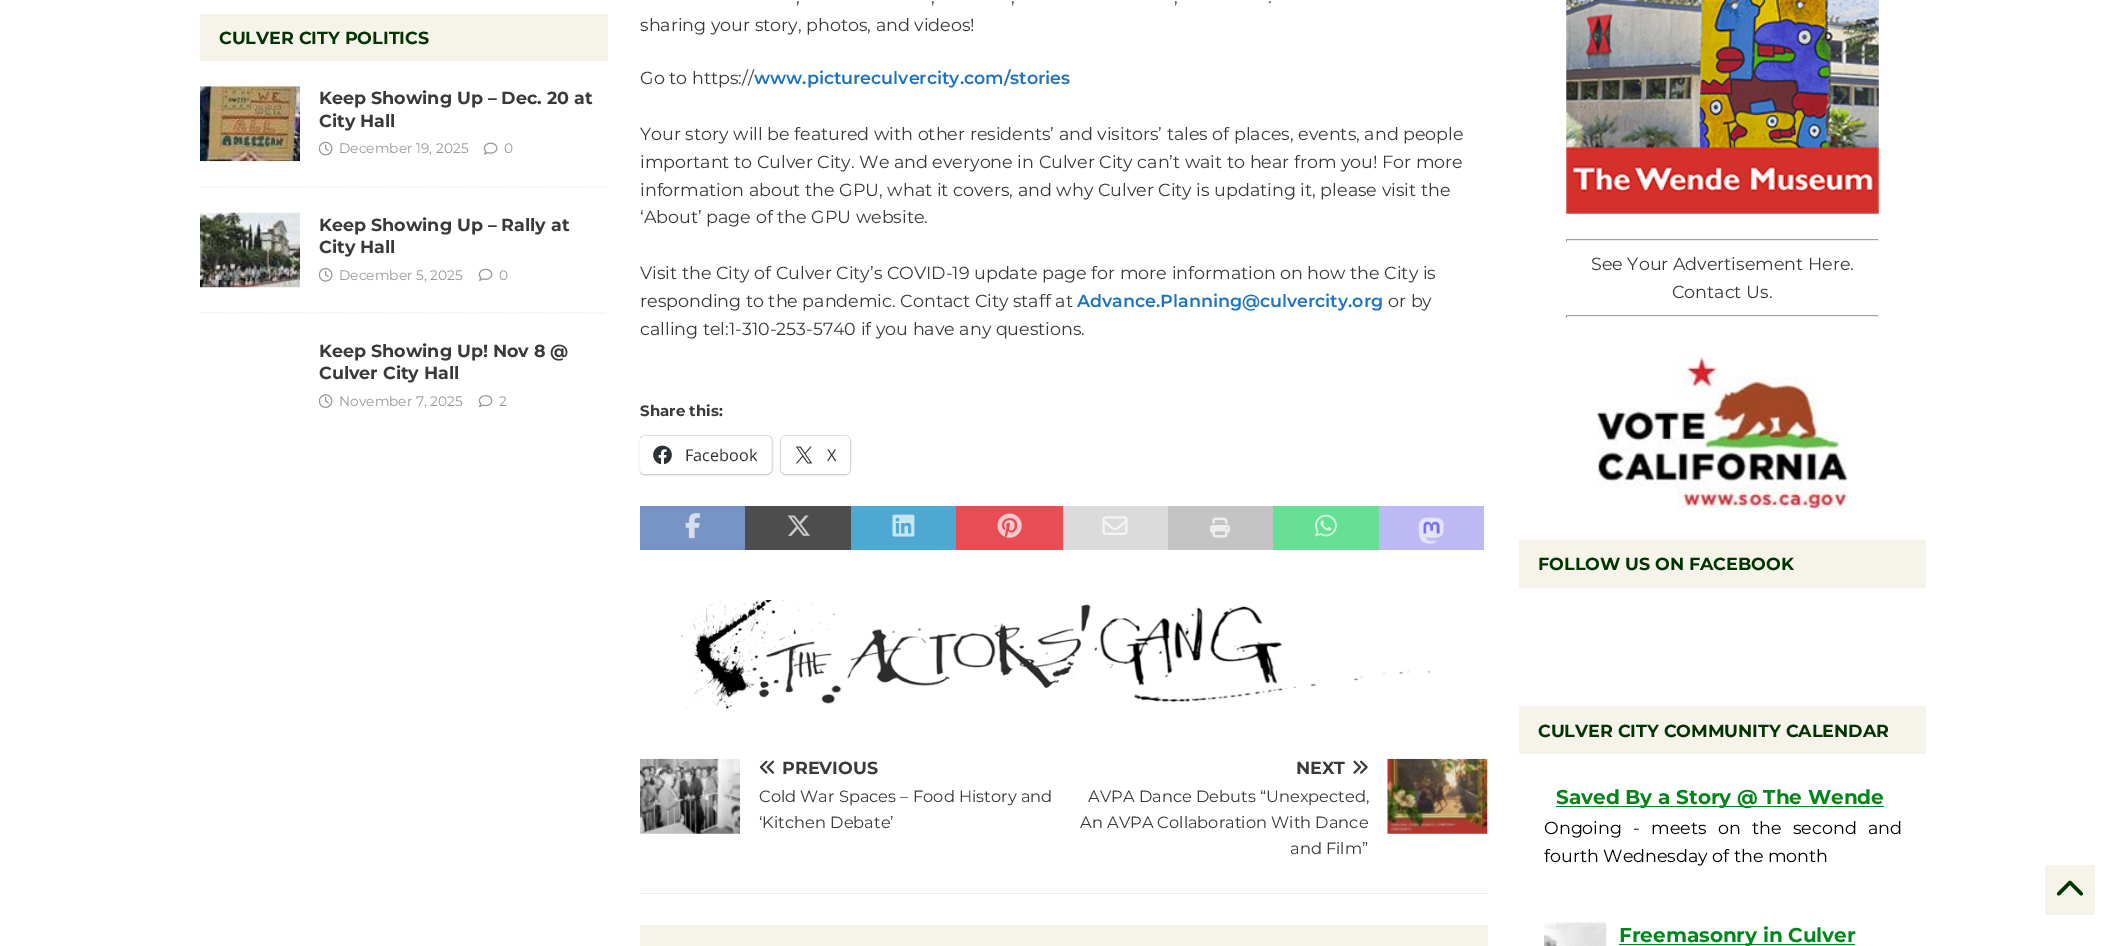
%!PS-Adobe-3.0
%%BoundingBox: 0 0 2126 946
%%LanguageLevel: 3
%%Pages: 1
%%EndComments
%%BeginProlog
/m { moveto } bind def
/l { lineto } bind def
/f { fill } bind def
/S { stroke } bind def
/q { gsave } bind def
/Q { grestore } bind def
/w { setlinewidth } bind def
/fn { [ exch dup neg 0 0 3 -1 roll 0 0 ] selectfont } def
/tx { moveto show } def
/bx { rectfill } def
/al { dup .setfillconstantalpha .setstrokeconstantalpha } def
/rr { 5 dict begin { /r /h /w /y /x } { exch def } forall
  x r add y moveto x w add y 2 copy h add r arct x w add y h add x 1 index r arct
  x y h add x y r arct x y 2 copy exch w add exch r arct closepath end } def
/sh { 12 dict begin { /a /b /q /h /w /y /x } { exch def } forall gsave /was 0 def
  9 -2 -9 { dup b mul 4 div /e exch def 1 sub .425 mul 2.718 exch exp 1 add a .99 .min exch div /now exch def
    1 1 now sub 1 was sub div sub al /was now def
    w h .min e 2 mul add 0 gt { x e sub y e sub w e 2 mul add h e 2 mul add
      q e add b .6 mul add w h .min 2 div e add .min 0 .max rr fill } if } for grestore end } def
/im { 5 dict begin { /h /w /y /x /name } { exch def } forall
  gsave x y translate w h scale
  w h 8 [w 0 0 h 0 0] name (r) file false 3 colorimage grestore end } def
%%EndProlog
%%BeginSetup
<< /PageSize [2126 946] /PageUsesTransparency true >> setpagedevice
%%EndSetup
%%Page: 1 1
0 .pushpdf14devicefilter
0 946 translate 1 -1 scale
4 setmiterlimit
1 setgray
0 0 2126 946 bx
0.965 0.957 0.918 setrgbcolor
200 14 408 47 bx
/Montserrat-Bold 17.5 fn
0 0.204 0 setrgbcolor
(CULVER CITY POLITICS) 219 44 tx
0.922 setgray
1.2 w
[1.25 1.25] 0 setdash
200 187 m 607.5 187 l S
(image0.raw) 200 86 100 76 im
0.227 setgray
(Keep Showing Up – Dec. 20 at) 319 104 tx
(City Hall) 319 127 tx
(image1.raw) 319 141 14 15 im
/Montserrat-Regular 13.75 fn
0.592 setgray
(December 19, 2025) 339 153 tx
(image2.raw) 483 142 15 13 im
(0) 504 153 tx
0.922 setgray
200 313 m 607.5 313 l S
(image3.raw) 200 212 100 76 im
/Montserrat-Bold 17.5 fn
0.227 setgray
(Keep Showing Up – Rally at) 319 231 tx
(City Hall) 319 253 tx
(image4.raw) 319 268 14 14 im
/Montserrat-Regular 13.75 fn
0.592 setgray
(December 5, 2025) 339 280 tx
(image5.raw) 478 268 15 13 im
(0) 499 280 tx
/Montserrat-Bold 17.5 fn
0.227 setgray
(Keep Showing Up! Nov 8 @) 319 357 tx
(Culver City Hall) 319 379 tx
(image6.raw) 319 394 14 14 im
/Montserrat-Regular 13.75 fn
0.592 setgray
(November 7, 2025) 339 406 tx
(image7.raw) 478 395 15 13 im
(2) 499 406 tx
/Montserrat-Regular 17.5 fn
0.227 setgray
(,) 796 3 tx
(,) 931 3 tx
(,) 1011 3 tx
(,) 1174 3 tx
(.) 1268 3 tx
(sharing your story, photos, and videos!) 640 31 tx
(Go to https://) 640 84 tx
/Montserrat-SemiBold 17.5 fn
0.118 0.451 0.745 setrgbcolor
(www.pictureculvercity.com/stories) 754 84 tx
/Montserrat-Regular 17.5 fn
0.227 setgray
(Your story will be featured with other residents’ and visitors’ tales of places, events, and people) 640 140 tx
(important to Culver City. We and everyone in Culver City can’t wait to hear from you! For more) 640 168 tx
(information about the GPU, what it covers, and why Culver City is updating it, please visit the) 640 196 tx
(‘About’ page of the GPU website.) 640 223 tx
(Visit the City of Culver City’s COVID-19 update page for more information on how the City is) 640 279 tx
(responding to the pandemic. Contact City staff at) 640 307 tx
/Montserrat-SemiBold 17.5 fn
0.118 0.451 0.745 setrgbcolor
(Advance.Planning@culvercity.org) 1077 307 tx
/Montserrat-Regular 17.5 fn
0.227 setgray
(or by) 1388 307 tx
(calling tel:1-310-253-5740 if you have any questions.) 640 335 tx
/Montserrat-Bold 15 fn
(Share this:) 640 416 tx
q
640 0 848 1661 rectclip
0.878 setgray
1 w
[] 0 setdash
639.5 435.5 133 39 5.5 rr S
Q
0 setgray
640 438 131 37 5 1 0.12 sh
1 setgray
640 436 131 38 5 rr f
(image8.raw) 653 445 19 20 im
/OpenSans-Regular 16.25 fn
0.173 0.2 0.22 setrgbcolor
(Facebook) 685 461 tx
0.878 setgray
1 w
[] 0 setdash
780.5 435.5 70 39 5.5 rr S
0 setgray
781 438 69 37 5 1 0.12 sh
1 setgray
781 436 69 38 5 rr f
(image9.raw) 795 446 18 18 im
0.173 0.2 0.22 setrgbcolor
(X) 827 461 tx
0.471 0.576 0.776 setrgbcolor
640 506 105 44 bx
(image10.raw) 685 513 15 26 im
0.302 setgray
745 506 106 44 bx
(image11.raw) 787 515 23 21 im
0.302 0.663 0.824 setrgbcolor
851 506 105 44 bx
(image12.raw) 892 514 23 23 im
0.91 0.302 0.337 setrgbcolor
956 506 107 44 bx
(image13.raw) 997 513 25 25 im
0.859 setgray
1063 506 105 44 bx
(image14.raw) 1102 516 26 19 im
0.769 setgray
1168 506 105 44 bx
(image15.raw) 1210 517 20 21 im
0.4 0.878 0.58 setrgbcolor
1273 506 106 44 bx
(image16.raw) 1315 514 22 23 im
0.741 0.725 0.961 setrgbcolor
1379 506 105 44 bx
(image17.raw) 1418 517 26 27 im
(image18.raw) 681 600 750 109 im
0.922 setgray
640 893 848 1 bx
(image19.raw) 640 758 100 76 im
(image20.raw) 759 760 15 14 im
/Montserrat-Bold 17.5 fn
0.227 setgray
(PREVIOUS) 782 774 tx
/Montserrat-Regular 16.25 fn
(Cold War Spaces – Food History and) 759 802 tx
(‘Kitchen Debate’) 759 828 tx
/Montserrat-Bold 17.5 fn
(NEXT) 1296 774 tx
(image21.raw) 1353 760 15 14 im
(image22.raw) 1387 758 101 76 im
/Montserrat-Regular 16.25 fn
(AVPA Dance Debuts “Unexpected,) 1088 802 tx
(An AVPA Collaboration With Dance) 1080 828 tx
(and Film”) 1290 854 tx
0.965 0.957 0.918 setrgbcolor
640 925 848 21 bx
(image23.raw) 1566 0 313 214 im
0.624 setgray
1566 239 313 1 bx
0.933 setgray
1878 239 1 3 bx
1566 240 313 1 bx
0.624 setgray
1566 239 1 3 bx
/Montserrat-Regular 17.5 fn
0.227 setgray
(See Your Advertisement Here.) 1591 270 tx
(Contact Us.) 1672 298 tx
0.624 setgray
1566 315 313 1 bx
0.933 setgray
1878 315 1 3 bx
1566 316 313 1 bx
0.624 setgray
1566 315 1 3 bx
(image24.raw) 1597 357 251 152 im
0.965 0.957 0.918 setrgbcolor
1519 540 407 48 bx
/Montserrat-Bold 17.5 fn
0 0.204 0 setrgbcolor
(FOLLOW US ON FACEBOOK) 1538 570 tx
0.965 0.957 0.918 setrgbcolor
1519 706 407 48 bx
0 0.204 0 setrgbcolor
(CULVER CITY COMMUNITY CALENDAR) 1538 737 tx
0 0.529 0.106 setrgbcolor
1556 806 328 1 bx
/Montserrat-Bold 20 fn
(Saved By a Story @ The Wende) 1556 804 tx
/Montserrat-Regular 17.5 fn
0 setgray
1544 834 m 6.75 0 32 (Ongoing - meets on the second and) widthshow
(fourth Wednesday of the month) 1544 862 tx
(image25.raw) 1544 922 63 24 im
0 0.529 0.106 setrgbcolor
1619 944 236 1 bx
/Montserrat-Bold 20 fn
(Freemasonry in Culver) 1619 942 tx
0.965 0.957 0.918 setrgbcolor
2045 865 50 50 bx
(image26.raw) 2056 880 28 16 im
.poppdf14devicefilter showpage
%%EOF
